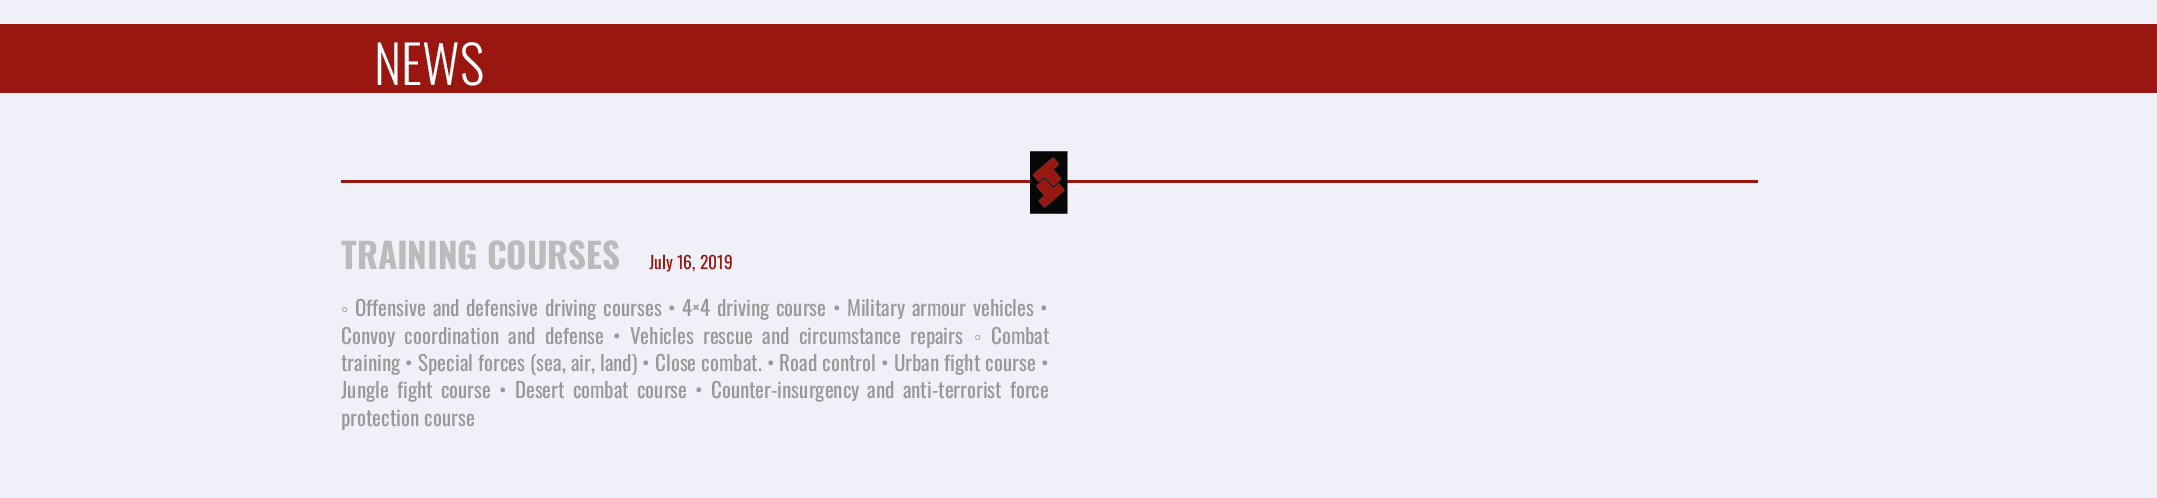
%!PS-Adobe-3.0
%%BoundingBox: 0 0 2157 498
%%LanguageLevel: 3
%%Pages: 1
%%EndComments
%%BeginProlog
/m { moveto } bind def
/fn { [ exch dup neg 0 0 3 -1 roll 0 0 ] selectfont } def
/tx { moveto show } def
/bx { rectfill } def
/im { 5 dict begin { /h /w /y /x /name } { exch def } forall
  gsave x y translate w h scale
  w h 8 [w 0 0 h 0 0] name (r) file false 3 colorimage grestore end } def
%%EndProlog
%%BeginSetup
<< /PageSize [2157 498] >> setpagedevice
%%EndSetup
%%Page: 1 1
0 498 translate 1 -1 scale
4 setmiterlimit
0.941 0.941 0.973 setrgbcolor
0 0 2157 498 bx
0.604 0.086 0.067 setrgbcolor
0 24 2157 69 bx
/Oswald-Light 52.5 fn
1 setgray
(NEWS) 374 85 tx
0.604 0.086 0.067 setrgbcolor
341 180 1417 3 bx
(image0.raw) 1030 151 38 63 im
/Oswald-Bold 35 fn
0.733 setgray
(TRAINING COURSES) 341 269 tx
/Oswald-Regular 17.5 fn
0.604 0.086 0.067 setrgbcolor
(July 16, 2019) 649 269 tx
/LiberationSans-Regular 21 fn
0.6 setgray
(◦) 341 316 tx
/Oswald-Regular 21 fn
355 316 m 1.75 0 32 (Offensive and defensive driving courses • 4×4 driving course • Military armour vehicles •) widthshow
341 344 m 4.5 0 32 (Convoy coordination and defense • Vehicles rescue and circumstance repairs) widthshow
/LiberationSans-Regular 21 fn
(◦) 974 344 tx
/Oswald-Regular 21 fn
(Combat) 991 344 tx
341 371 m 0.3 0 32 (training • Special forces \(sea, air, land\) • Close combat. • Road control • Urban fight course •) widthshow
341 398 m 3.25 0 32 (Jungle fight course • Desert combat course • Counter-insurgency and anti-terrorist force) widthshow
(protection course) 341 426 tx
showpage
%%EOF
